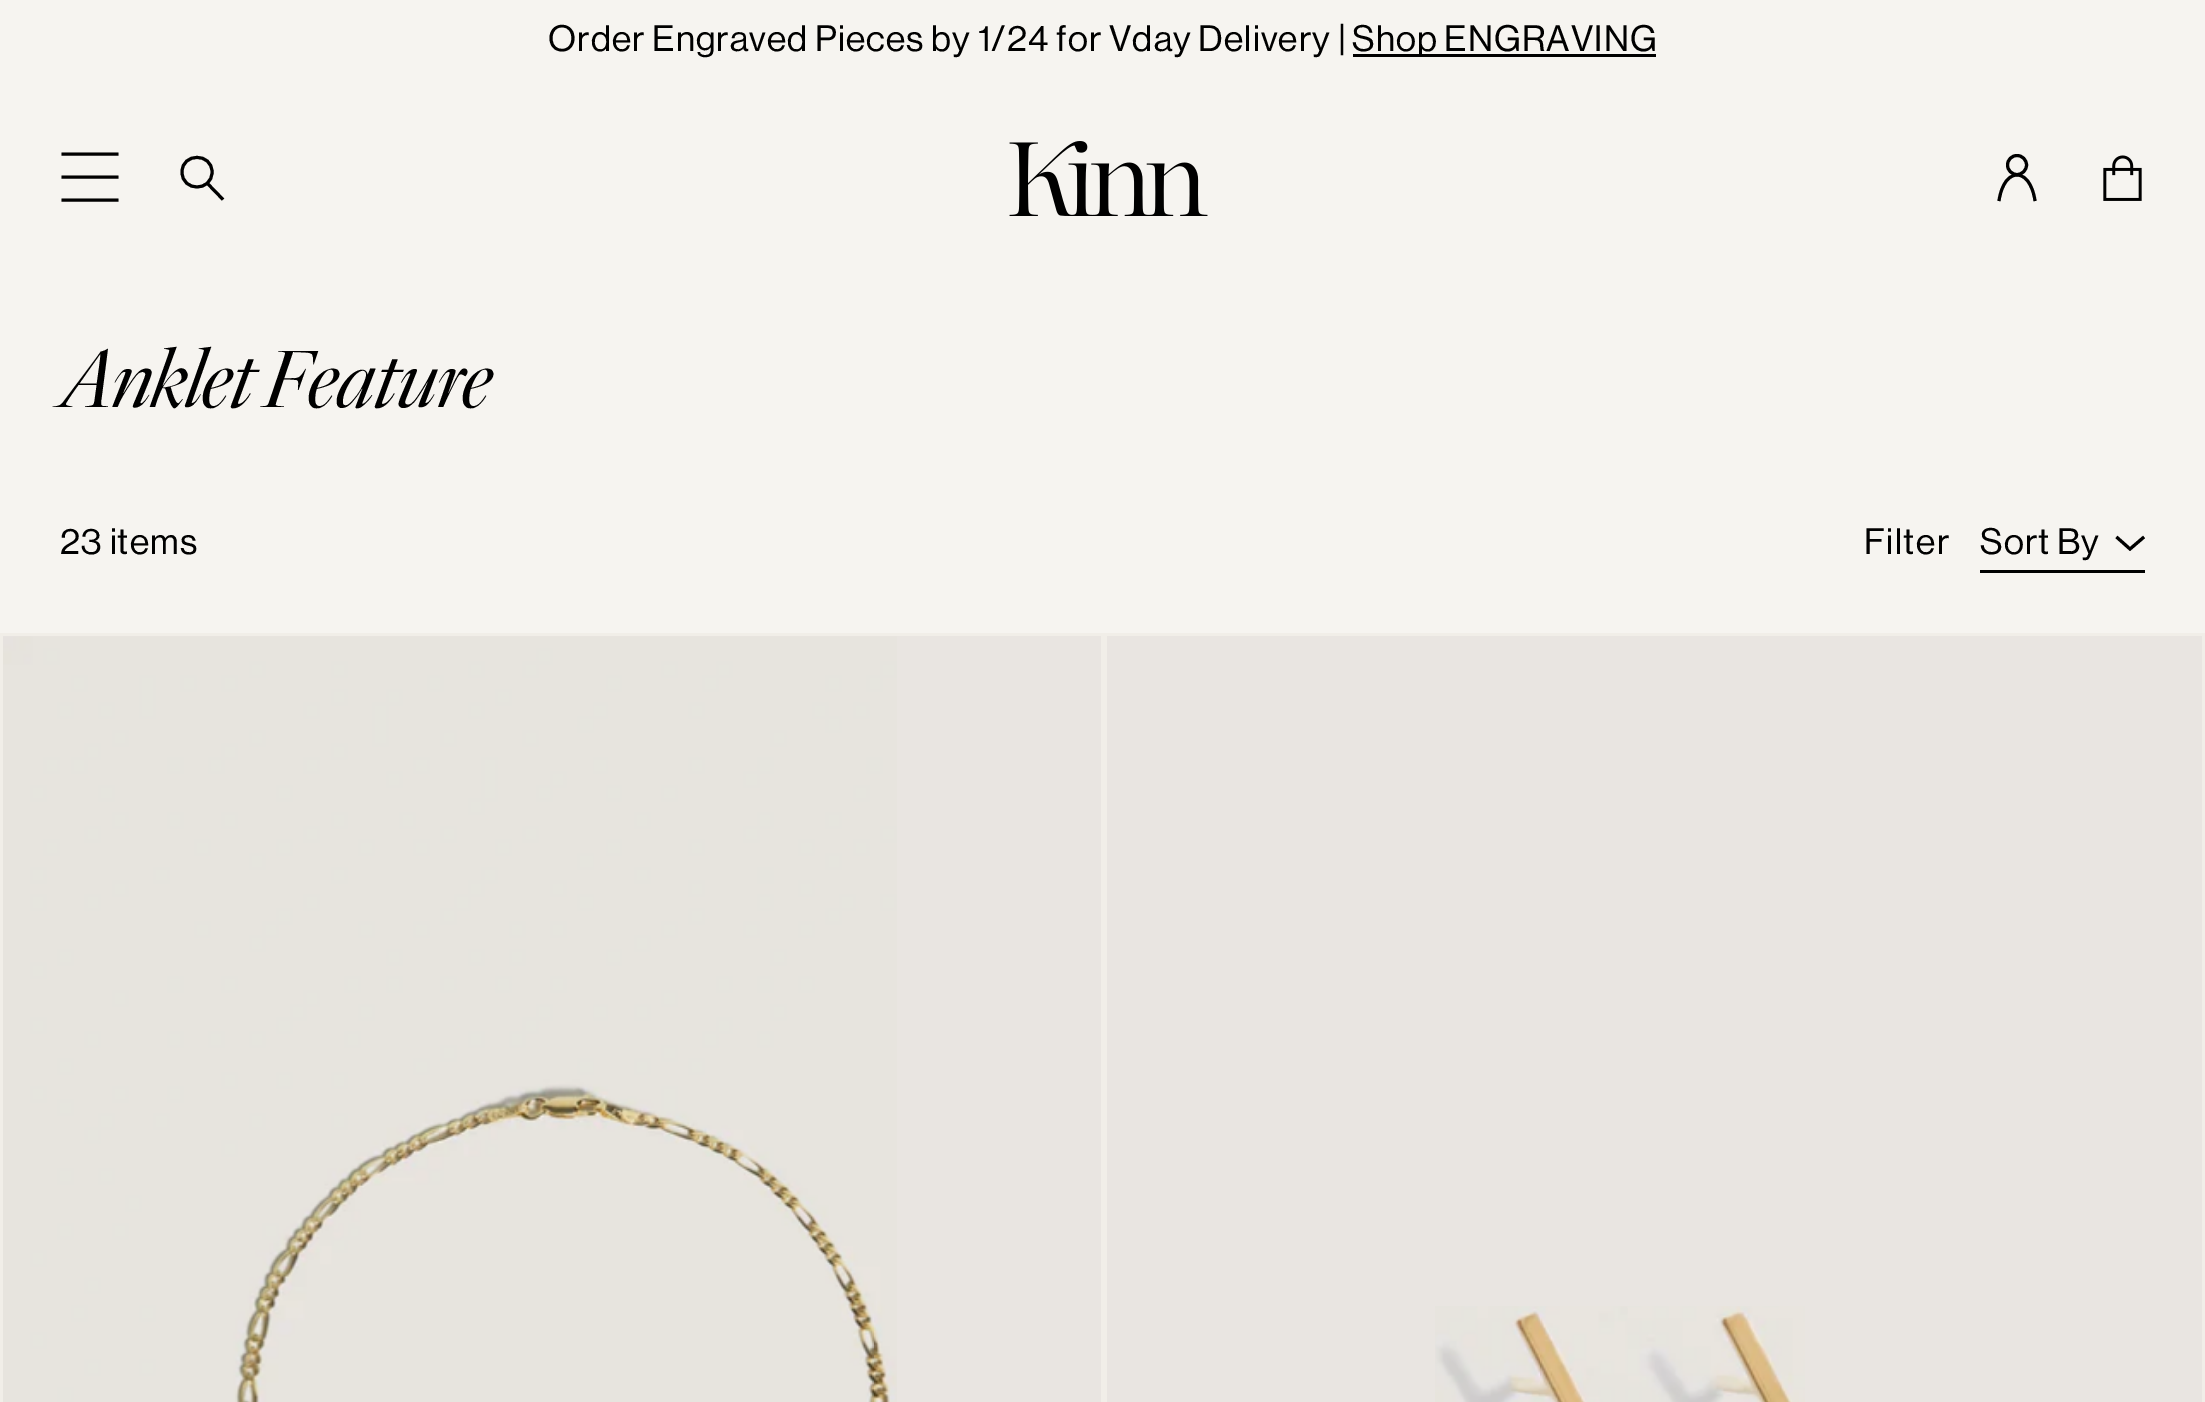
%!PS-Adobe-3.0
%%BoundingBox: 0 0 2205 1402
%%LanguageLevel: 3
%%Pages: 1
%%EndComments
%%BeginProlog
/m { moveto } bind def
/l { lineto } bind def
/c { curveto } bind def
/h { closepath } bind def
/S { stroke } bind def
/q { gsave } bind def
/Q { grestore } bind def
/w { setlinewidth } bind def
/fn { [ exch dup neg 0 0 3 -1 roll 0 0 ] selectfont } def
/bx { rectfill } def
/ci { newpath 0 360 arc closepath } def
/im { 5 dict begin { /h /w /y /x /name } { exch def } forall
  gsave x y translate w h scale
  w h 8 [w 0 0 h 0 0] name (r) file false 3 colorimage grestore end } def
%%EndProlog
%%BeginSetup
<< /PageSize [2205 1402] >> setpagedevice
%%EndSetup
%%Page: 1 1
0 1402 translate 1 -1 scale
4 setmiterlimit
0.965 0.957 0.941 setrgbcolor
0 0 2205 1402 bx
/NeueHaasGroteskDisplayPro-Medium 36 fn
0 setgray
548 51 m 1.1 0 (Order Engraved Pieces by 1/24 for Vday Delivery |) ashow
1353 54 303 3 bx
1352 51 m 1.1 0 (Shop ENGRAVING) ashow
2.9 w
61.5 154 m 118.5 154 l 61.5 177 m 118.5 177 l 61.5 200 m 118.5 200 l S
3 w
207 183 m 223 199.5 l 212 172 m 212 192 182 192 182 172 c 182 152.5 212 152.5 212 172 c h S
(image0.raw) 1009 141 199 75 im
2017 165 9.5 ci S
2017 175 m 2029 175 2034 192.5 2035 201 c 2017 175 m 2005 175 2000 192.5 1999 201 c S
(image1.raw) 2103 155 39 46 im
/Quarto-LightItalic 84 fn
60 407 m -1.75 0 (Anklet Feature) ashow
/NeueHaasGroteskDisplayPro-Medium 36 fn
60 554 m 1.1 0 (23 items) ashow
1864 554 m 1.5 0 (Filter) ashow
1980 554 m 1.1 0 (Sort By) ashow
2144 537 m 2130 549 l 2116.5 537 l S
1980 570 165 3 bx
0.945 0.933 0.91 setrgbcolor
1.5 634.5 1101 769 rectstroke
q 3 636 m 1101 636 l 1101 1402 l 3 1402 l h clip newpath
<< /ShadingType 2 /ColorSpace /DeviceRGB /Coords [-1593 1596 1407 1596] /Extend [true true] /Function << /FunctionType 3 /Domain [0 1] /Functions [<< /FunctionType 2 /Domain [0 1] /C0 [0.914 0.898 0.882] /C1 [0.914 0.898 0.882] /N 1 >> << /FunctionType 2 /Domain [0 1] /C0 [0.914 0.898 0.882] /C1 [0.918 0.902 0.89] /N 1 >> << /FunctionType 2 /Domain [0 1] /C0 [0.918 0.902 0.89] /C1 [0.914 0.898 0.882] /N 1 >> << /FunctionType 2 /Domain [0 1] /C0 [0.914 0.898 0.882] /C1 [0.914 0.898 0.882] /N 1 >>] /Bounds [0.08 0.38 0.54] /Encode [0 1 0 1 0 1 0 1] >> >> shfill Q
(image2.raw) 3 636 894 766 im
1105.5 634.5 1098 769 rectstroke
q 1107 636 m 2202 636 l 2202 1402 l 1107 1402 l h clip newpath
<< /ShadingType 2 /ColorSpace /DeviceRGB /Coords [-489 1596 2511 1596] /Extend [true true] /Function << /FunctionType 3 /Domain [0 1] /Functions [<< /FunctionType 2 /Domain [0 1] /C0 [0.914 0.898 0.882] /C1 [0.914 0.898 0.882] /N 1 >> << /FunctionType 2 /Domain [0 1] /C0 [0.914 0.898 0.882] /C1 [0.918 0.902 0.89] /N 1 >> << /FunctionType 2 /Domain [0 1] /C0 [0.918 0.902 0.89] /C1 [0.914 0.898 0.882] /N 1 >> << /FunctionType 2 /Domain [0 1] /C0 [0.914 0.898 0.882] /C1 [0.914 0.898 0.882] /N 1 >>] /Bounds [0.08 0.38 0.54] /Encode [0 1 0 1 0 1 0 1] >> >> shfill Q
(image3.raw) 1435 1306 370 96 im
showpage
%%EOF
